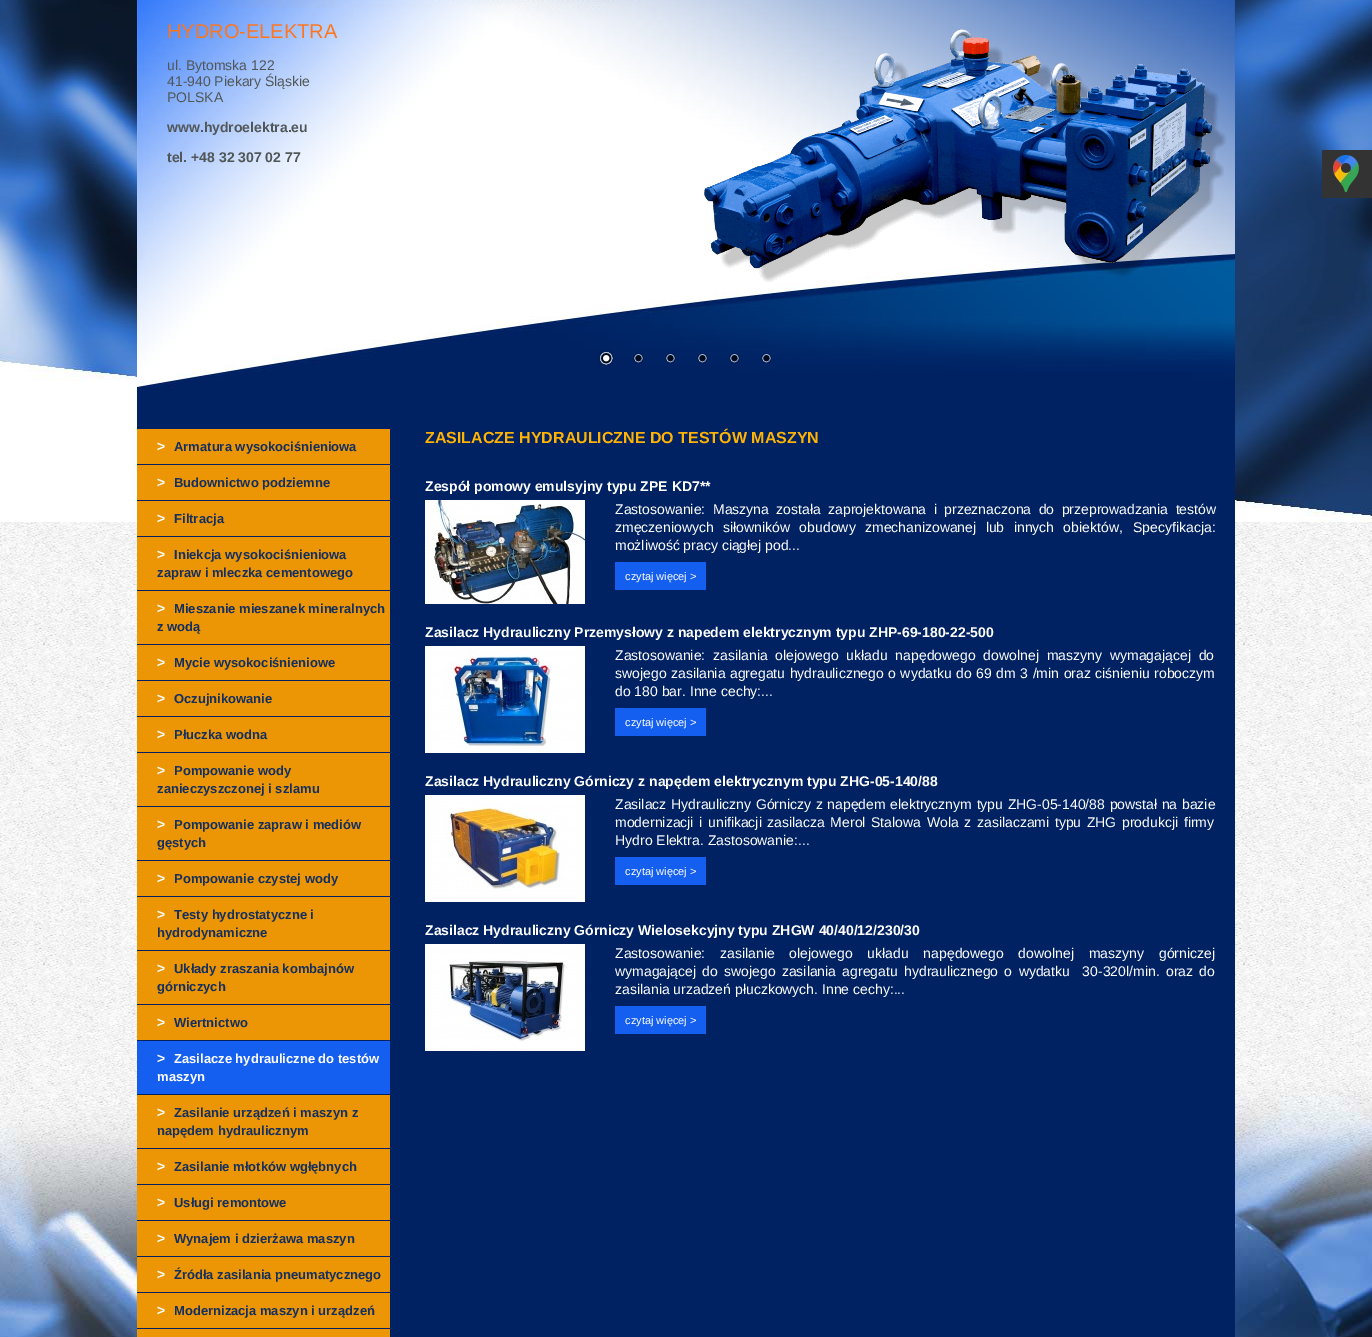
%!PS-Adobe-3.0
%%BoundingBox: 0 0 1372 1337
%%LanguageLevel: 3
%%Pages: 1
%%EndComments
%%BeginProlog
/m { moveto } bind def
/fn { [ exch dup neg 0 0 3 -1 roll 0 0 ] selectfont } def
/tx { moveto show } def
/bx { rectfill } def
/im { 5 dict begin { /h /w /y /x /name } { exch def } forall
  gsave x y translate w h scale
  w h 8 [w 0 0 h 0 0] name (r) file false 3 colorimage grestore end } def
%%EndProlog
%%BeginSetup
<< /PageSize [1372 1337] >> setpagedevice
%%EndSetup
%%Page: 1 1
0 1337 translate 1 -1 scale
4 setmiterlimit
1 setgray
0 0 1372 1337 bx
(image0.raw) 0 522 1372 815 im
(image1.raw) 0 0 1372 522 im
(image3.raw) 137 0 1098 389 im
(image2.raw) 219 0 119 8 im
(image4.raw) 704 29 522 253 im
/LiberationSans-Regular 20 fn
1 0.459 0.11 setrgbcolor
(HYDRO-ELEKTRA) 167 38 tx
/LiberationSans-Regular 14 fn
0.318 0.341 0.341 setrgbcolor
(ul. Bytomska 122) 167 70 tx
(41-940 Piekary Śląskie) 167 86 tx
(POLSKA) 167 102 tx
/LiberationSans-Bold 14 fn
(www.hydroelektra.eu) 167 132 tx
(tel. +48 32 307 02 77) 167 162 tx
(image5.raw) 598 350 16 16 im
(image6.raw) 633 353 11 11 im
(image7.raw) 665 353 11 11 im
(image8.raw) 697 353 11 11 im
(image9.raw) 729 353 11 11 im
(image10.raw) 761 353 11 11 im
0 0.133 0.388 setrgbcolor
137 389 1098 948 bx
0.925 0.588 0.02 setrgbcolor
137 429 253 35 bx
1 setgray
(>) 157 451 tx
/LiberationSans-Bold 13 fn
0.082 0.184 0.376 setrgbcolor
(Armatura wysokociśnieniowa) 174 451 tx
0.925 0.588 0.02 setrgbcolor
137 465 253 35 bx
/LiberationSans-Bold 14 fn
1 setgray
(>) 157 487 tx
/LiberationSans-Bold 13 fn
0.082 0.184 0.376 setrgbcolor
(Budownictwo podziemne) 174 487 tx
0.925 0.588 0.02 setrgbcolor
137 501 253 35 bx
/LiberationSans-Bold 14 fn
1 setgray
(>) 157 523 tx
/LiberationSans-Bold 13 fn
0.082 0.184 0.376 setrgbcolor
(Filtracja) 174 523 tx
0.925 0.588 0.02 setrgbcolor
137 537 253 53 bx
/LiberationSans-Bold 14 fn
1 setgray
(>) 157 559 tx
/LiberationSans-Bold 13 fn
0.082 0.184 0.376 setrgbcolor
(Iniekcja wysokociśnieniowa) 174 559 tx
(zapraw i mleczka cementowego) 157 577 tx
0.925 0.588 0.02 setrgbcolor
137 591 253 53 bx
/LiberationSans-Bold 14 fn
1 setgray
(>) 157 613 tx
/LiberationSans-Bold 13 fn
0.082 0.184 0.376 setrgbcolor
(Mieszanie mieszanek mineralnych) 174 613 tx
(z wodą) 157 631 tx
0.925 0.588 0.02 setrgbcolor
137 645 253 35 bx
/LiberationSans-Bold 14 fn
1 setgray
(>) 157 667 tx
/LiberationSans-Bold 13 fn
0.082 0.184 0.376 setrgbcolor
(Mycie wysokociśnieniowe) 174 667 tx
0.925 0.588 0.02 setrgbcolor
137 681 253 35 bx
/LiberationSans-Bold 14 fn
1 setgray
(>) 157 703 tx
/LiberationSans-Bold 13 fn
0.082 0.184 0.376 setrgbcolor
(Oczujnikowanie) 174 703 tx
0.925 0.588 0.02 setrgbcolor
137 717 253 35 bx
/LiberationSans-Bold 14 fn
1 setgray
(>) 157 739 tx
/LiberationSans-Bold 13 fn
0.082 0.184 0.376 setrgbcolor
(Płuczka wodna) 174 739 tx
0.925 0.588 0.02 setrgbcolor
137 753 253 53 bx
/LiberationSans-Bold 14 fn
1 setgray
(>) 157 775 tx
/LiberationSans-Bold 13 fn
0.082 0.184 0.376 setrgbcolor
(Pompowanie wody) 174 775 tx
(zanieczyszczonej i szlamu) 157 793 tx
0.925 0.588 0.02 setrgbcolor
137 807 253 53 bx
/LiberationSans-Bold 14 fn
1 setgray
(>) 157 829 tx
/LiberationSans-Bold 13 fn
0.082 0.184 0.376 setrgbcolor
(Pompowanie zapraw i mediów) 174 829 tx
(gęstych) 157 847 tx
0.925 0.588 0.02 setrgbcolor
137 861 253 35 bx
/LiberationSans-Bold 14 fn
1 setgray
(>) 157 883 tx
/LiberationSans-Bold 13 fn
0.082 0.184 0.376 setrgbcolor
(Pompowanie czystej wody) 174 883 tx
0.925 0.588 0.02 setrgbcolor
137 897 253 53 bx
/LiberationSans-Bold 14 fn
1 setgray
(>) 157 919 tx
/LiberationSans-Bold 13 fn
0.082 0.184 0.376 setrgbcolor
(Testy hydrostatyczne i) 174 919 tx
(hydrodynamiczne) 157 937 tx
0.925 0.588 0.02 setrgbcolor
137 951 253 53 bx
/LiberationSans-Bold 14 fn
1 setgray
(>) 157 973 tx
/LiberationSans-Bold 13 fn
0.082 0.184 0.376 setrgbcolor
(Układy zraszania kombajnów) 174 973 tx
(górniczych) 157 991 tx
0.925 0.588 0.02 setrgbcolor
137 1005 253 35 bx
/LiberationSans-Bold 14 fn
1 setgray
(>) 157 1027 tx
/LiberationSans-Bold 13 fn
0.082 0.184 0.376 setrgbcolor
(Wiertnictwo) 174 1027 tx
0.078 0.373 0.941 setrgbcolor
137 1041 253 53 bx
/LiberationSans-Bold 14 fn
1 setgray
(>) 157 1063 tx
/LiberationSans-Bold 13 fn
(Zasilacze hydrauliczne do testów) 174 1063 tx
(maszyn) 157 1081 tx
0.925 0.588 0.02 setrgbcolor
137 1095 253 53 bx
/LiberationSans-Bold 14 fn
1 setgray
(>) 157 1117 tx
/LiberationSans-Bold 13 fn
0.082 0.184 0.376 setrgbcolor
(Zasilanie urządzeń i maszyn z) 174 1117 tx
(napędem hydraulicznym) 157 1135 tx
0.925 0.588 0.02 setrgbcolor
137 1149 253 35 bx
/LiberationSans-Bold 14 fn
1 setgray
(>) 157 1171 tx
/LiberationSans-Bold 13 fn
0.082 0.184 0.376 setrgbcolor
(Zasilanie młotków wgłębnych) 174 1171 tx
0.925 0.588 0.02 setrgbcolor
137 1185 253 35 bx
/LiberationSans-Bold 14 fn
1 setgray
(>) 157 1207 tx
/LiberationSans-Bold 13 fn
0.082 0.184 0.376 setrgbcolor
(Usługi remontowe) 174 1207 tx
0.925 0.588 0.02 setrgbcolor
137 1221 253 35 bx
/LiberationSans-Bold 14 fn
1 setgray
(>) 157 1243 tx
/LiberationSans-Bold 13 fn
0.082 0.184 0.376 setrgbcolor
(Wynajem i dzierżawa maszyn) 174 1243 tx
0.925 0.588 0.02 setrgbcolor
137 1257 253 35 bx
/LiberationSans-Bold 14 fn
1 setgray
(>) 157 1279 tx
/LiberationSans-Bold 13 fn
0.082 0.184 0.376 setrgbcolor
(Źródła zasilania pneumatycznego) 174 1279 tx
0.925 0.588 0.02 setrgbcolor
137 1293 253 35 bx
/LiberationSans-Bold 14 fn
1 setgray
(>) 157 1315 tx
/LiberationSans-Bold 13 fn
0.082 0.184 0.376 setrgbcolor
(Modernizacja maszyn i urządzeń) 174 1315 tx
0.925 0.588 0.02 setrgbcolor
137 1329 253 8 bx
/LiberationSans-Bold 16 fn
1 0.702 0.016 setrgbcolor
(ZASILACZE HYDRAULICZNE DO TESTÓW MASZYN) 425 443 tx
/LiberationSans-Bold 14 fn
1 setgray
(Zespół pomowy emulsyjny typu ZPE KD7**) 425 491 tx
(image11.raw) 425 500 160 104 im
/LiberationSans-Regular 14 fn
(Zastosowanie:) 615 514 tx
713 514 m 3.5 0 32 (Maszyna została zaprojektowana i przeznaczona do przeprowadzania testów) widthshow
615 532 m 5.5 0 32 (zmęczeniowych siłowników obudowy zmechanizowanej lub innych obiektów,) widthshow
(Specyfikacja:) 1133 532 tx
(możliwość pracy ciągłej pod...) 615 550 tx
0.078 0.373 0.941 setrgbcolor
615 562 91 28 bx
/LiberationSans-Regular 11 fn
1 setgray
(czytaj więcej >) 625 580 tx
/LiberationSans-Bold 14 fn
(Zasilacz Hydrauliczny Przemysłowy z napedem elektrycznym typu ZHP-69-180-22-500) 425 637 tx
(image12.raw) 425 646 160 107 im
/LiberationSans-Regular 14 fn
(Zastosowanie:) 615 660 tx
713 660 m 4 0 32 (zasilania olejowego układu napędowego dowolnej maszyny wymagającej do) widthshow
615 678 m 0.6 0 32 (swojego zasilania agregatu hydraulicznego o wydatku do 69 dm 3 /min oraz ciśnieniu roboczym) widthshow
(do 180 bar. Inne cechy:...) 615 696 tx
0.078 0.373 0.941 setrgbcolor
615 708 91 28 bx
/LiberationSans-Regular 11 fn
1 setgray
(czytaj więcej >) 625 726 tx
/LiberationSans-Bold 14 fn
(Zasilacz Hydrauliczny Górniczy z napędem elektrycznym typu ZHG-05-140/88) 425 786 tx
(image13.raw) 425 795 160 107 im
/LiberationSans-Regular 14 fn
615 809 m 0.75 0 32 (Zasilacz Hydrauliczny Górniczy z napędem elektrycznym typu ZHG-05-140/88 powstał na bazie) widthshow
615 827 m 1.75 0 32 (modernizacji i unifikacji zasilacza Merol Stalowa Wola z zasilaczami typu ZHG produkcji firmy) widthshow
(Hydro Elektra. Zastosowanie:...) 615 845 tx
0.078 0.373 0.941 setrgbcolor
615 857 91 28 bx
/LiberationSans-Regular 11 fn
1 setgray
(czytaj więcej >) 625 875 tx
/LiberationSans-Bold 14 fn
(Zasilacz Hydrauliczny Górniczy Wielosekcyjny typu ZHGW 40/40/12/230/30) 425 935 tx
(image14.raw) 425 944 160 107 im
/LiberationSans-Regular 14 fn
(Zastosowanie:) 615 958 tx
720 958 m 11 0 32 (zasilanie olejowego układu napędowego dowolnej maszyny górniczej) widthshow
615 976 m 2.4 0 32 (wymagającej do swojego zasilania agregatu hydraulicznego o wydatku  30-320l/min. oraz do) widthshow
(zasilania urzadzeń płuczkowych. Inne cechy:...) 615 994 tx
0.078 0.373 0.941 setrgbcolor
615 1006 91 28 bx
/LiberationSans-Regular 11 fn
1 setgray
(czytaj więcej >) 625 1024 tx
0.2 setgray
1322 150 50 48 bx
(image15.raw) 1333 155 26 38 im
showpage
%%EOF
